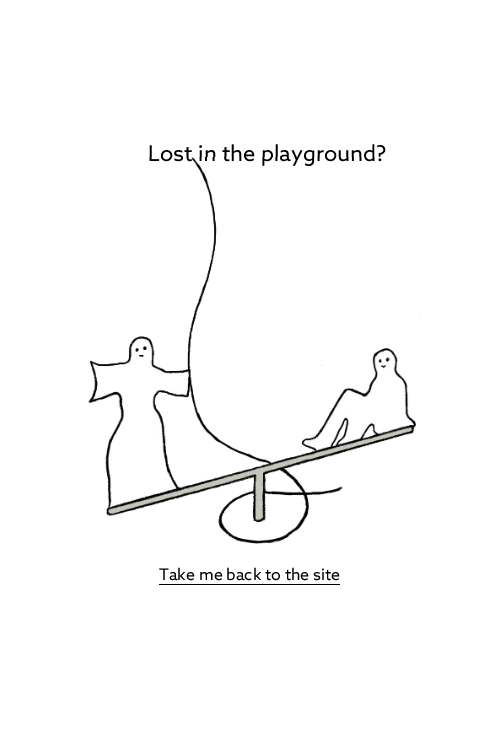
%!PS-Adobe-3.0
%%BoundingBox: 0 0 499 732
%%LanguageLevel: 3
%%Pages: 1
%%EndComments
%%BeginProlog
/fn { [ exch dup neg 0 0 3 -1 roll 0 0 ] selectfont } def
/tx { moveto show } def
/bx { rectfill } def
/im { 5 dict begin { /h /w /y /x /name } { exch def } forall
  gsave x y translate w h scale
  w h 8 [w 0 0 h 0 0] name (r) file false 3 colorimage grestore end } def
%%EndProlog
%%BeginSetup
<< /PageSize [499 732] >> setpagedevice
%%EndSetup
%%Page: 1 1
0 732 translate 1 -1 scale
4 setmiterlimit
1 setgray
0 0 499 732 bx
/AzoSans-Regular 21.9 fn
0 setgray
(Lost in the playground?) 148 161 tx
(image0.raw) 88 157 332 387 im
/AzoSans-Regular 16 fn
(Take me back to the site) 159 580 tx
159 584 181 1 bx
showpage
%%EOF
